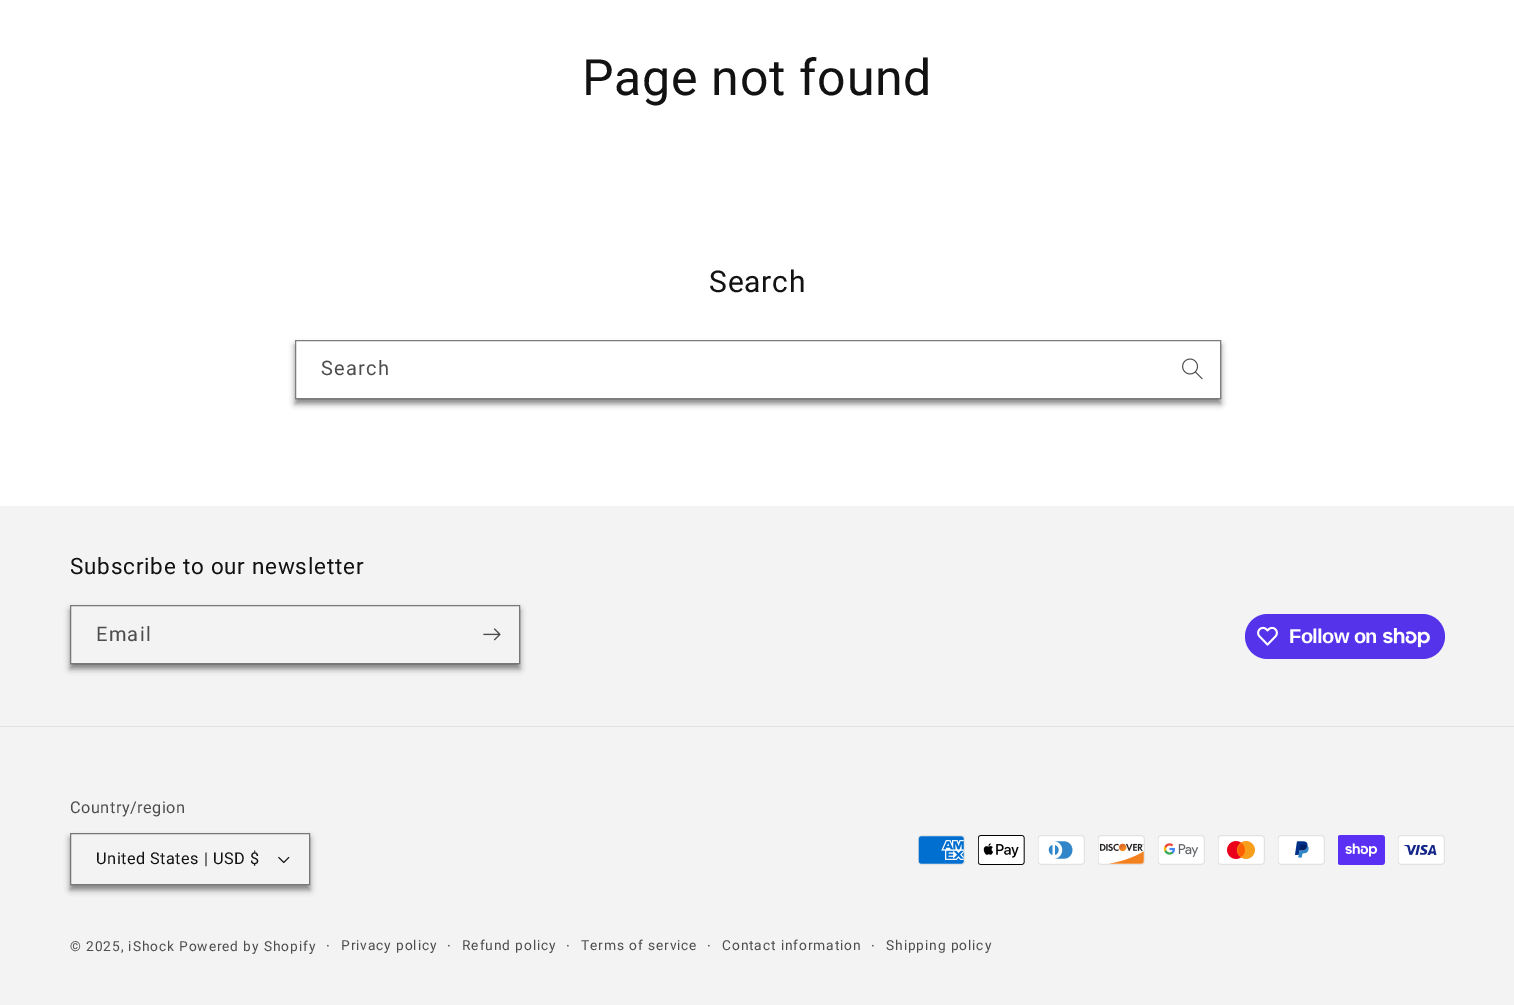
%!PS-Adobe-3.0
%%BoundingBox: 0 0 1514 1005
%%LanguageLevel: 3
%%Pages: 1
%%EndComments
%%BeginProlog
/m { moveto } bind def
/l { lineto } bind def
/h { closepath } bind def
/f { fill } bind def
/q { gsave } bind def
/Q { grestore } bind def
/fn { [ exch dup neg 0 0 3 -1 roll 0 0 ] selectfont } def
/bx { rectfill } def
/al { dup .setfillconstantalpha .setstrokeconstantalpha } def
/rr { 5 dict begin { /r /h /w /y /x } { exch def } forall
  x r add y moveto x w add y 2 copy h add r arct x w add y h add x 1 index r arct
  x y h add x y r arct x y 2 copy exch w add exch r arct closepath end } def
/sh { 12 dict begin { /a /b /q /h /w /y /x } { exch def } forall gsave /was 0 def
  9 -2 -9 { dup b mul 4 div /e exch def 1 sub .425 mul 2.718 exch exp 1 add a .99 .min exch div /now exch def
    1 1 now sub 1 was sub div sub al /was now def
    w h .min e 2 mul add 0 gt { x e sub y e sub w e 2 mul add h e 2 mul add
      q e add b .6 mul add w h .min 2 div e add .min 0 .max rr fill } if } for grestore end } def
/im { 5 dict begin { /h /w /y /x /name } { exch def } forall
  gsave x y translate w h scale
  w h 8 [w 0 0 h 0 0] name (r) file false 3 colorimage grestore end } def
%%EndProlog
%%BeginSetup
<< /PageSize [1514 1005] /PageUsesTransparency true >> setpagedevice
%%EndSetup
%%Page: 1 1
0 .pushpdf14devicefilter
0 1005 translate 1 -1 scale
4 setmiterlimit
1 setgray
0 0 1514 1005 bx
/Roboto-Regular 50 fn
0.071 setgray
582 95 m 0.75 0 (Page not found) ashow
/Roboto-Regular 30 fn
709 292 m 0.75 0 (Search) ashow
q
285 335 m 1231 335 l 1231 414 l 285 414 l h 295 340 m 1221 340 l 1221 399 l 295 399 l h eoclip newpath
295 345 926 59 0 3 0.5 sh
Q
(image0.raw) 1182 358 21 22 im
0.55 al
295.5 340.5 925 58 rectstroke
/Roboto-Regular 20 fn
1 al
0.302 setgray
321 375 m 1.25 0 (Search) ashow
0.953 setgray
0 506 1514 499 bx
/Roboto-Regular 22.5 fn
0.071 setgray
70 574 m 0.75 0 (Subscribe to our newsletter) ashow
q
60 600 m 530 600 l 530 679 l 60 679 l h 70 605 m 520 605 l 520 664 l 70 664 l h eoclip newpath
70 610 450 59 0 3 0.5 sh
Q
0.55 al
70.5 605.5 449 58 rectstroke
/Roboto-Regular 20 fn
1 al
0.302 setgray
96 641 m 1.25 0 (Email) ashow
(image1.raw) 483 628 18 13 im
0.329 0.2 0.922 setrgbcolor
1245 614 200 45 22.5 rr f
(image2.raw) 1257 626 21 20 im
/LiberationSans-Bold 20 fn
1 setgray
1289 643 m -0.6 0 (Follow on) ashow
(image3.raw) 1383 628 47 20 im
0.882 setgray
0 726 1514 1 bx
/Roboto-Regular 16.25 fn
0.302 setgray
70 813 m 0.5 0 (Country/region) ashow
q
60 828 m 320 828 l 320 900 l 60 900 l h 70 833 m 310 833 l 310 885 l 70 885 l h eoclip newpath
0.071 setgray
70 838 240 52 0 3 0.5 sh
Q
(image4.raw) 278 856 12 8 im
0.467 setgray
70.5 833.5 239 51 rectstroke
0.071 setgray
96 864 m 0.5 0 (United States | USD $) ashow
(image5.raw) 918 835 47 30 im
(image6.raw) 978 835 47 30 im
(image7.raw) 1038 835 47 30 im
(image8.raw) 1098 835 47 30 im
(image9.raw) 1158 835 47 30 im
(image10.raw) 1218 835 47 30 im
(image11.raw) 1278 835 47 30 im
(image12.raw) 1338 835 47 30 im
(image13.raw) 1398 835 47 30 im
/Roboto-Regular 13.75 fn
0.302 setgray
70 951 m 0.9 0 (© 2025, iShock) ashow
179 951 m 0.9 0 (Powered by Shopify) ashow
/Roboto-Regular 15 fn
326 951 m 0.9 0 (·) ashow
/Roboto-Regular 13.75 fn
341 950 m 0.9 0 (Privacy policy) ashow
/Roboto-Regular 15 fn
447 951 m 0.9 0 (·) ashow
/Roboto-Regular 13.75 fn
462 950 m 0.9 0 (Refund policy) ashow
/Roboto-Regular 15 fn
566 951 m 0.9 0 (·) ashow
/Roboto-Regular 13.75 fn
581 950 m 0.9 0 (Terms of service) ashow
/Roboto-Regular 15 fn
707 951 m 0.9 0 (·) ashow
/Roboto-Regular 13.75 fn
722 950 m 0.9 0 (Contact information) ashow
/Roboto-Regular 15 fn
871 951 m 0.9 0 (·) ashow
/Roboto-Regular 13.75 fn
886 950 m 0.9 0 (Shipping policy) ashow
.poppdf14devicefilter showpage
%%EOF
